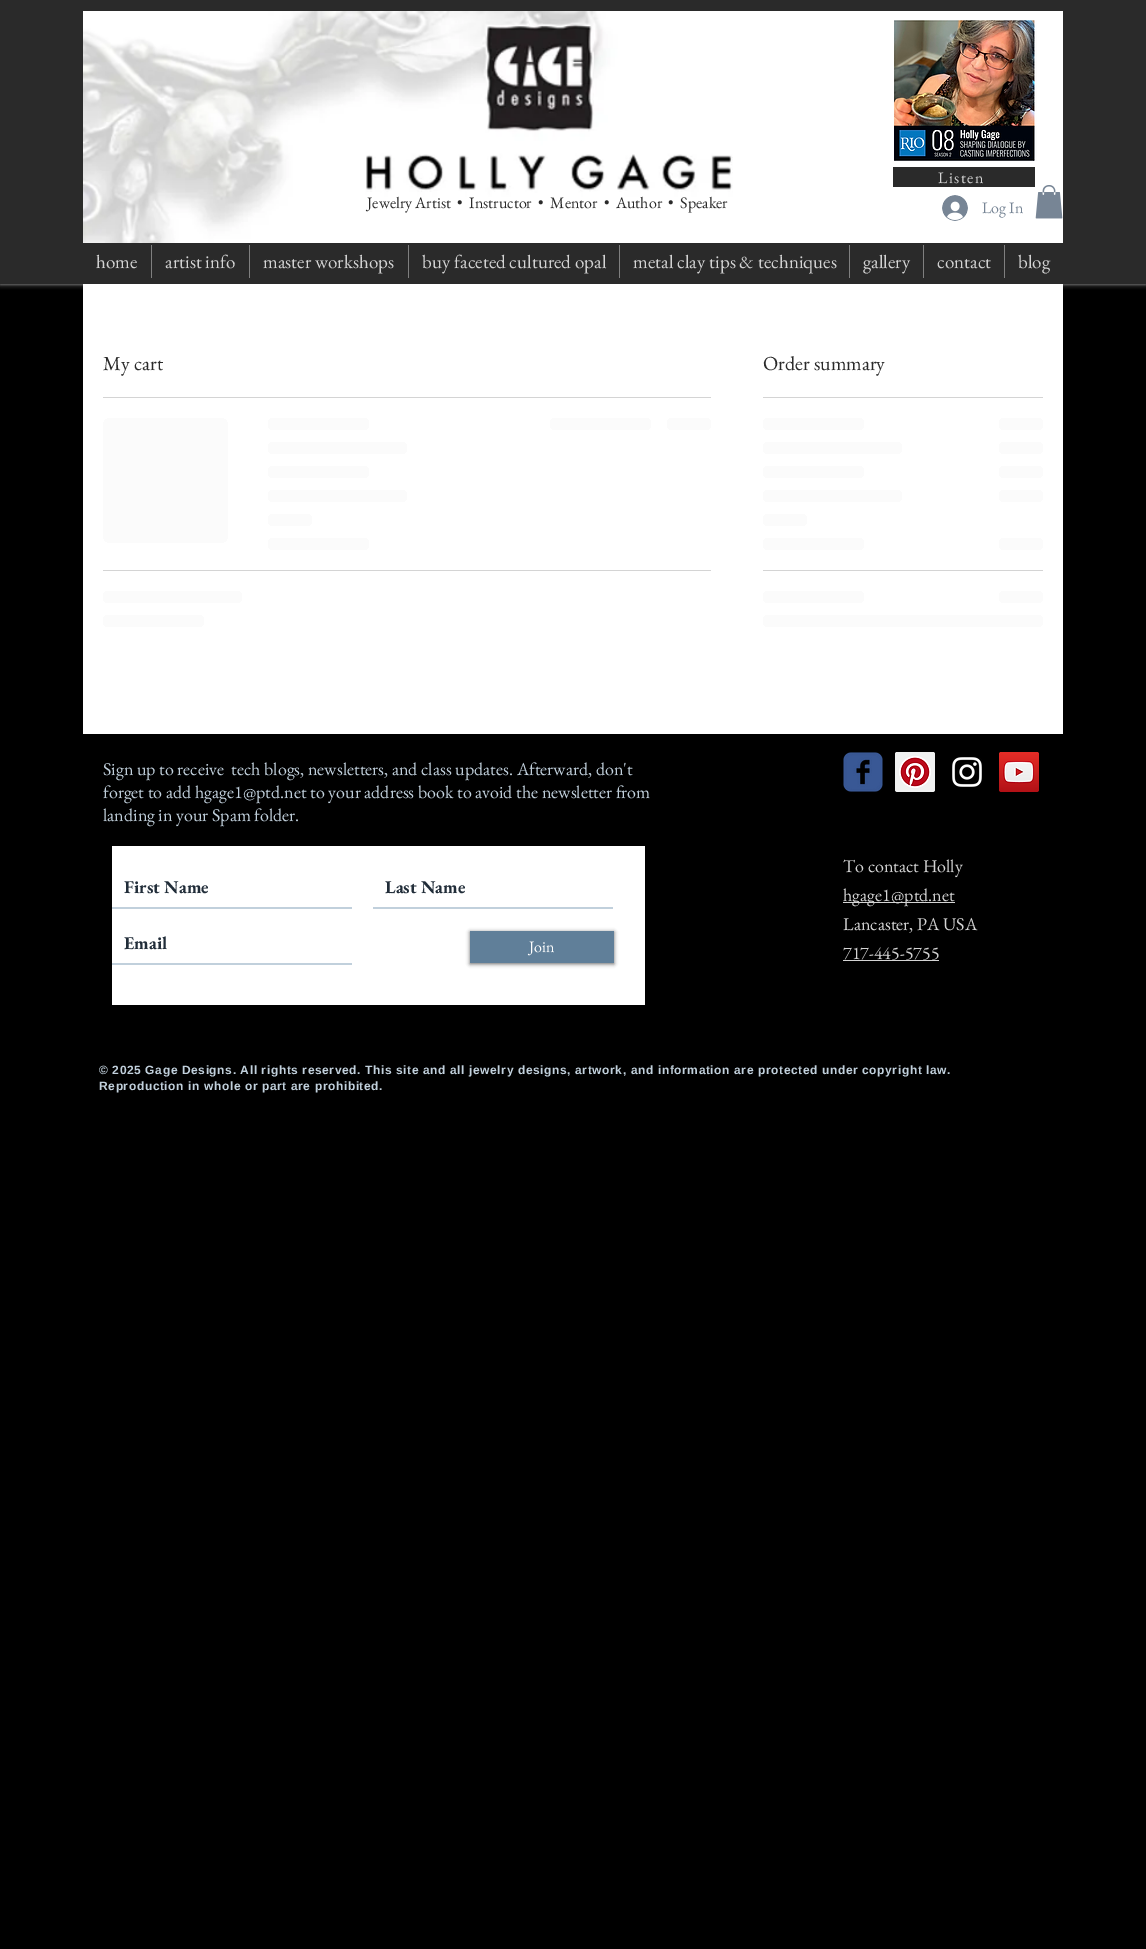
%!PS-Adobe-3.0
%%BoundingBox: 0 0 1146 1949
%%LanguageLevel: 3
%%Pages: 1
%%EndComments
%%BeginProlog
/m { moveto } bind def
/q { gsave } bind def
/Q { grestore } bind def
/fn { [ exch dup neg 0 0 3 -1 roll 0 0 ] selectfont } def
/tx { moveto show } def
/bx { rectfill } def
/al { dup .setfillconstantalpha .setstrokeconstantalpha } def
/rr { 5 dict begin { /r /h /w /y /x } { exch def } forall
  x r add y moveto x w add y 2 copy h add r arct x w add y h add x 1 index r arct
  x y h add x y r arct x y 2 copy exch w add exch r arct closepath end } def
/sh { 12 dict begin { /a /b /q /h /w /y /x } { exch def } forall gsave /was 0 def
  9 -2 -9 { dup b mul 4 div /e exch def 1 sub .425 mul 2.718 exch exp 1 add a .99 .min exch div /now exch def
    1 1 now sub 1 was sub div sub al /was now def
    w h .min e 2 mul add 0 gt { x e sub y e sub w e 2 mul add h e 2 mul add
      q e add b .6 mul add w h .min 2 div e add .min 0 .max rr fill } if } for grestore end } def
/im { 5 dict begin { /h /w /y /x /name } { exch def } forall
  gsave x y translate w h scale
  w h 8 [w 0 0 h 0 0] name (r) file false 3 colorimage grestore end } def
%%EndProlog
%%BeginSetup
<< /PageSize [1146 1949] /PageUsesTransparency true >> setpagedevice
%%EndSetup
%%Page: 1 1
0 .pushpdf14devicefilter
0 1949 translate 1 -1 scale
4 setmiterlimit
0 setgray
0 0 1146 1949 bx
1 setgray
0 0 1146 284 0 2.5 0.7 sh
0.165 setgray
0 0 1146 284 bx
1 setgray
733 11 330 232 bx
(image0.raw) 83 11 650 232 im
(image1.raw) 893 20 144 141 im
0.165 setgray
893 167 142 20 bx
/EBGaramond-Regular 16 fn
0.831 setgray
938 183 m 1.5 0 (Listen) ashow
0.165 setgray
(Jewelry Artist  •  Instructor  •  Mentor  •  Author  •  Speaker) 367 208 tx
(image2.raw) 942 195 26 26 im
0.467 0.522 0.584 setrgbcolor
(Log In) 982 213 tx
(image3.raw) 1035 185 28 34 im
/EBGaramond-Regular 19 fn
0.831 setgray
(home) 96 268 tx
0.498 setgray
151 245 1 33 bx
0.831 setgray
(artist info) 165 268 tx
0.498 setgray
249 245 1 33 bx
0.831 setgray
(master workshops) 263 268 tx
0.498 setgray
408 245 1 33 bx
0.831 setgray
(buy faceted cultured opal) 422 268 tx
0.498 setgray
619 245 1 33 bx
0.831 setgray
(metal clay tips & techniques) 633 268 tx
0.498 setgray
849 245 1 33 bx
0.831 setgray
(gallery) 863 268 tx
0.498 setgray
923 245 1 33 bx
0.831 setgray
(contact) 937 268 tx
0.498 setgray
1004 245 1 33 bx
0.831 setgray
(blog) 1018 268 tx
1 setgray
83 284 980 450 bx
0.831 setgray
103 397 608 1 bx
/EBGaramond-Regular 20 fn
0.165 setgray
(My cart) 103 370 tx
q 103 418 125 125 8 rr clip newpath
<< /ShadingType 2 /ColorSpace /DeviceRGB /Coords [103 481 603 481] /Extend [true true] /Function << /FunctionType 3 /Domain [0 1] /Functions [<< /FunctionType 2 /Domain [0 1] /C0 [0.984 0.984 0.984] /C1 [0.984 0.984 0.984] /N 1 >> << /FunctionType 2 /Domain [0 1] /C0 [0.984 0.984 0.984] /C1 [0.965 0.965 0.965] /N 1 >> << /FunctionType 2 /Domain [0 1] /C0 [0.965 0.965 0.965] /C1 [0.984 0.984 0.984] /N 1 >> << /FunctionType 2 /Domain [0 1] /C0 [0.984 0.984 0.984] /C1 [0.984 0.984 0.984] /N 1 >>] /Bounds [0.25 0.37 0.63] /Encode [0 1 0 1 0 1 0 1] >> >> shfill Q
q 268 418 101 12 6 rr clip newpath
<< /ShadingType 2 /ColorSpace /DeviceRGB /Coords [268 424 672 424] /Extend [true true] /Function << /FunctionType 3 /Domain [0 1] /Functions [<< /FunctionType 2 /Domain [0 1] /C0 [0.984 0.984 0.984] /C1 [0.984 0.984 0.984] /N 1 >> << /FunctionType 2 /Domain [0 1] /C0 [0.984 0.984 0.984] /C1 [0.965 0.965 0.965] /N 1 >> << /FunctionType 2 /Domain [0 1] /C0 [0.965 0.965 0.965] /C1 [0.984 0.984 0.984] /N 1 >> << /FunctionType 2 /Domain [0 1] /C0 [0.984 0.984 0.984] /C1 [0.984 0.984 0.984] /N 1 >>] /Bounds [0.25 0.37 0.63] /Encode [0 1 0 1 0 1 0 1] >> >> shfill Q
q 268 442 139 12 6 rr clip newpath
<< /ShadingType 2 /ColorSpace /DeviceRGB /Coords [268 448 824 448] /Extend [true true] /Function << /FunctionType 3 /Domain [0 1] /Functions [<< /FunctionType 2 /Domain [0 1] /C0 [0.984 0.984 0.984] /C1 [0.984 0.984 0.984] /N 1 >> << /FunctionType 2 /Domain [0 1] /C0 [0.984 0.984 0.984] /C1 [0.965 0.965 0.965] /N 1 >> << /FunctionType 2 /Domain [0 1] /C0 [0.965 0.965 0.965] /C1 [0.984 0.984 0.984] /N 1 >> << /FunctionType 2 /Domain [0 1] /C0 [0.984 0.984 0.984] /C1 [0.984 0.984 0.984] /N 1 >>] /Bounds [0.25 0.37 0.63] /Encode [0 1 0 1 0 1 0 1] >> >> shfill Q
q 268 466 101 12 6 rr clip newpath
<< /ShadingType 2 /ColorSpace /DeviceRGB /Coords [268 472 672 472] /Extend [true true] /Function << /FunctionType 3 /Domain [0 1] /Functions [<< /FunctionType 2 /Domain [0 1] /C0 [0.984 0.984 0.984] /C1 [0.984 0.984 0.984] /N 1 >> << /FunctionType 2 /Domain [0 1] /C0 [0.984 0.984 0.984] /C1 [0.965 0.965 0.965] /N 1 >> << /FunctionType 2 /Domain [0 1] /C0 [0.965 0.965 0.965] /C1 [0.984 0.984 0.984] /N 1 >> << /FunctionType 2 /Domain [0 1] /C0 [0.984 0.984 0.984] /C1 [0.984 0.984 0.984] /N 1 >>] /Bounds [0.25 0.37 0.63] /Encode [0 1 0 1 0 1 0 1] >> >> shfill Q
q 268 490 139 12 6 rr clip newpath
<< /ShadingType 2 /ColorSpace /DeviceRGB /Coords [268 496 824 496] /Extend [true true] /Function << /FunctionType 3 /Domain [0 1] /Functions [<< /FunctionType 2 /Domain [0 1] /C0 [0.984 0.984 0.984] /C1 [0.984 0.984 0.984] /N 1 >> << /FunctionType 2 /Domain [0 1] /C0 [0.984 0.984 0.984] /C1 [0.965 0.965 0.965] /N 1 >> << /FunctionType 2 /Domain [0 1] /C0 [0.965 0.965 0.965] /C1 [0.984 0.984 0.984] /N 1 >> << /FunctionType 2 /Domain [0 1] /C0 [0.984 0.984 0.984] /C1 [0.984 0.984 0.984] /N 1 >>] /Bounds [0.25 0.37 0.63] /Encode [0 1 0 1 0 1 0 1] >> >> shfill Q
q 268 514 44 12 6 rr clip newpath
<< /ShadingType 2 /ColorSpace /DeviceRGB /Coords [268 520 444 520] /Extend [true true] /Function << /FunctionType 3 /Domain [0 1] /Functions [<< /FunctionType 2 /Domain [0 1] /C0 [0.984 0.984 0.984] /C1 [0.984 0.984 0.984] /N 1 >> << /FunctionType 2 /Domain [0 1] /C0 [0.984 0.984 0.984] /C1 [0.965 0.965 0.965] /N 1 >> << /FunctionType 2 /Domain [0 1] /C0 [0.965 0.965 0.965] /C1 [0.984 0.984 0.984] /N 1 >> << /FunctionType 2 /Domain [0 1] /C0 [0.984 0.984 0.984] /C1 [0.984 0.984 0.984] /N 1 >>] /Bounds [0.25 0.37 0.63] /Encode [0 1 0 1 0 1 0 1] >> >> shfill Q
q 268 538 101 12 6 rr clip newpath
<< /ShadingType 2 /ColorSpace /DeviceRGB /Coords [268 544 672 544] /Extend [true true] /Function << /FunctionType 3 /Domain [0 1] /Functions [<< /FunctionType 2 /Domain [0 1] /C0 [0.984 0.984 0.984] /C1 [0.984 0.984 0.984] /N 1 >> << /FunctionType 2 /Domain [0 1] /C0 [0.984 0.984 0.984] /C1 [0.965 0.965 0.965] /N 1 >> << /FunctionType 2 /Domain [0 1] /C0 [0.965 0.965 0.965] /C1 [0.984 0.984 0.984] /N 1 >> << /FunctionType 2 /Domain [0 1] /C0 [0.984 0.984 0.984] /C1 [0.984 0.984 0.984] /N 1 >>] /Bounds [0.25 0.37 0.63] /Encode [0 1 0 1 0 1 0 1] >> >> shfill Q
q 550 418 101 12 6 rr clip newpath
<< /ShadingType 2 /ColorSpace /DeviceRGB /Coords [550 424 954 424] /Extend [true true] /Function << /FunctionType 3 /Domain [0 1] /Functions [<< /FunctionType 2 /Domain [0 1] /C0 [0.984 0.984 0.984] /C1 [0.984 0.984 0.984] /N 1 >> << /FunctionType 2 /Domain [0 1] /C0 [0.984 0.984 0.984] /C1 [0.965 0.965 0.965] /N 1 >> << /FunctionType 2 /Domain [0 1] /C0 [0.965 0.965 0.965] /C1 [0.984 0.984 0.984] /N 1 >> << /FunctionType 2 /Domain [0 1] /C0 [0.984 0.984 0.984] /C1 [0.984 0.984 0.984] /N 1 >>] /Bounds [0.25 0.37 0.63] /Encode [0 1 0 1 0 1 0 1] >> >> shfill Q
q 667 418 44 12 6 rr clip newpath
<< /ShadingType 2 /ColorSpace /DeviceRGB /Coords [667 424 843 424] /Extend [true true] /Function << /FunctionType 3 /Domain [0 1] /Functions [<< /FunctionType 2 /Domain [0 1] /C0 [0.984 0.984 0.984] /C1 [0.984 0.984 0.984] /N 1 >> << /FunctionType 2 /Domain [0 1] /C0 [0.984 0.984 0.984] /C1 [0.965 0.965 0.965] /N 1 >> << /FunctionType 2 /Domain [0 1] /C0 [0.965 0.965 0.965] /C1 [0.984 0.984 0.984] /N 1 >> << /FunctionType 2 /Domain [0 1] /C0 [0.984 0.984 0.984] /C1 [0.984 0.984 0.984] /N 1 >>] /Bounds [0.25 0.37 0.63] /Encode [0 1 0 1 0 1 0 1] >> >> shfill Q
0.831 setgray
103 570 608 1 bx
q 103 591 139 12 6 rr clip newpath
<< /ShadingType 2 /ColorSpace /DeviceRGB /Coords [103 597 659 597] /Extend [true true] /Function << /FunctionType 3 /Domain [0 1] /Functions [<< /FunctionType 2 /Domain [0 1] /C0 [0.984 0.984 0.984] /C1 [0.984 0.984 0.984] /N 1 >> << /FunctionType 2 /Domain [0 1] /C0 [0.984 0.984 0.984] /C1 [0.965 0.965 0.965] /N 1 >> << /FunctionType 2 /Domain [0 1] /C0 [0.965 0.965 0.965] /C1 [0.984 0.984 0.984] /N 1 >> << /FunctionType 2 /Domain [0 1] /C0 [0.984 0.984 0.984] /C1 [0.984 0.984 0.984] /N 1 >>] /Bounds [0.25 0.37 0.63] /Encode [0 1 0 1 0 1 0 1] >> >> shfill Q
q 103 615 101 12 6 rr clip newpath
<< /ShadingType 2 /ColorSpace /DeviceRGB /Coords [103 621 507 621] /Extend [true true] /Function << /FunctionType 3 /Domain [0 1] /Functions [<< /FunctionType 2 /Domain [0 1] /C0 [0.984 0.984 0.984] /C1 [0.984 0.984 0.984] /N 1 >> << /FunctionType 2 /Domain [0 1] /C0 [0.984 0.984 0.984] /C1 [0.965 0.965 0.965] /N 1 >> << /FunctionType 2 /Domain [0 1] /C0 [0.965 0.965 0.965] /C1 [0.984 0.984 0.984] /N 1 >> << /FunctionType 2 /Domain [0 1] /C0 [0.984 0.984 0.984] /C1 [0.984 0.984 0.984] /N 1 >>] /Bounds [0.25 0.37 0.63] /Encode [0 1 0 1 0 1 0 1] >> >> shfill Q
763 397 280 1 bx
0.165 setgray
(Order summary) 763 370 tx
q 763 418 101 12 6 rr clip newpath
<< /ShadingType 2 /ColorSpace /DeviceRGB /Coords [763 424 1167 424] /Extend [true true] /Function << /FunctionType 3 /Domain [0 1] /Functions [<< /FunctionType 2 /Domain [0 1] /C0 [0.984 0.984 0.984] /C1 [0.984 0.984 0.984] /N 1 >> << /FunctionType 2 /Domain [0 1] /C0 [0.984 0.984 0.984] /C1 [0.965 0.965 0.965] /N 1 >> << /FunctionType 2 /Domain [0 1] /C0 [0.965 0.965 0.965] /C1 [0.984 0.984 0.984] /N 1 >> << /FunctionType 2 /Domain [0 1] /C0 [0.984 0.984 0.984] /C1 [0.984 0.984 0.984] /N 1 >>] /Bounds [0.25 0.37 0.63] /Encode [0 1 0 1 0 1 0 1] >> >> shfill Q
q 999 418 44 12 6 rr clip newpath
<< /ShadingType 2 /ColorSpace /DeviceRGB /Coords [999 424 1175 424] /Extend [true true] /Function << /FunctionType 3 /Domain [0 1] /Functions [<< /FunctionType 2 /Domain [0 1] /C0 [0.984 0.984 0.984] /C1 [0.984 0.984 0.984] /N 1 >> << /FunctionType 2 /Domain [0 1] /C0 [0.984 0.984 0.984] /C1 [0.965 0.965 0.965] /N 1 >> << /FunctionType 2 /Domain [0 1] /C0 [0.965 0.965 0.965] /C1 [0.984 0.984 0.984] /N 1 >> << /FunctionType 2 /Domain [0 1] /C0 [0.984 0.984 0.984] /C1 [0.984 0.984 0.984] /N 1 >>] /Bounds [0.25 0.37 0.63] /Encode [0 1 0 1 0 1 0 1] >> >> shfill Q
q 763 442 139 12 6 rr clip newpath
<< /ShadingType 2 /ColorSpace /DeviceRGB /Coords [763 448 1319 448] /Extend [true true] /Function << /FunctionType 3 /Domain [0 1] /Functions [<< /FunctionType 2 /Domain [0 1] /C0 [0.984 0.984 0.984] /C1 [0.984 0.984 0.984] /N 1 >> << /FunctionType 2 /Domain [0 1] /C0 [0.984 0.984 0.984] /C1 [0.965 0.965 0.965] /N 1 >> << /FunctionType 2 /Domain [0 1] /C0 [0.965 0.965 0.965] /C1 [0.984 0.984 0.984] /N 1 >> << /FunctionType 2 /Domain [0 1] /C0 [0.984 0.984 0.984] /C1 [0.984 0.984 0.984] /N 1 >>] /Bounds [0.25 0.37 0.63] /Encode [0 1 0 1 0 1 0 1] >> >> shfill Q
q 999 442 44 12 6 rr clip newpath
<< /ShadingType 2 /ColorSpace /DeviceRGB /Coords [999 448 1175 448] /Extend [true true] /Function << /FunctionType 3 /Domain [0 1] /Functions [<< /FunctionType 2 /Domain [0 1] /C0 [0.984 0.984 0.984] /C1 [0.984 0.984 0.984] /N 1 >> << /FunctionType 2 /Domain [0 1] /C0 [0.984 0.984 0.984] /C1 [0.965 0.965 0.965] /N 1 >> << /FunctionType 2 /Domain [0 1] /C0 [0.965 0.965 0.965] /C1 [0.984 0.984 0.984] /N 1 >> << /FunctionType 2 /Domain [0 1] /C0 [0.984 0.984 0.984] /C1 [0.984 0.984 0.984] /N 1 >>] /Bounds [0.25 0.37 0.63] /Encode [0 1 0 1 0 1 0 1] >> >> shfill Q
q 763 466 101 12 6 rr clip newpath
<< /ShadingType 2 /ColorSpace /DeviceRGB /Coords [763 472 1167 472] /Extend [true true] /Function << /FunctionType 3 /Domain [0 1] /Functions [<< /FunctionType 2 /Domain [0 1] /C0 [0.984 0.984 0.984] /C1 [0.984 0.984 0.984] /N 1 >> << /FunctionType 2 /Domain [0 1] /C0 [0.984 0.984 0.984] /C1 [0.965 0.965 0.965] /N 1 >> << /FunctionType 2 /Domain [0 1] /C0 [0.965 0.965 0.965] /C1 [0.984 0.984 0.984] /N 1 >> << /FunctionType 2 /Domain [0 1] /C0 [0.984 0.984 0.984] /C1 [0.984 0.984 0.984] /N 1 >>] /Bounds [0.25 0.37 0.63] /Encode [0 1 0 1 0 1 0 1] >> >> shfill Q
q 999 466 44 12 6 rr clip newpath
<< /ShadingType 2 /ColorSpace /DeviceRGB /Coords [999 472 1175 472] /Extend [true true] /Function << /FunctionType 3 /Domain [0 1] /Functions [<< /FunctionType 2 /Domain [0 1] /C0 [0.984 0.984 0.984] /C1 [0.984 0.984 0.984] /N 1 >> << /FunctionType 2 /Domain [0 1] /C0 [0.984 0.984 0.984] /C1 [0.965 0.965 0.965] /N 1 >> << /FunctionType 2 /Domain [0 1] /C0 [0.965 0.965 0.965] /C1 [0.984 0.984 0.984] /N 1 >> << /FunctionType 2 /Domain [0 1] /C0 [0.984 0.984 0.984] /C1 [0.984 0.984 0.984] /N 1 >>] /Bounds [0.25 0.37 0.63] /Encode [0 1 0 1 0 1 0 1] >> >> shfill Q
q 763 490 139 12 6 rr clip newpath
<< /ShadingType 2 /ColorSpace /DeviceRGB /Coords [763 496 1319 496] /Extend [true true] /Function << /FunctionType 3 /Domain [0 1] /Functions [<< /FunctionType 2 /Domain [0 1] /C0 [0.984 0.984 0.984] /C1 [0.984 0.984 0.984] /N 1 >> << /FunctionType 2 /Domain [0 1] /C0 [0.984 0.984 0.984] /C1 [0.965 0.965 0.965] /N 1 >> << /FunctionType 2 /Domain [0 1] /C0 [0.965 0.965 0.965] /C1 [0.984 0.984 0.984] /N 1 >> << /FunctionType 2 /Domain [0 1] /C0 [0.984 0.984 0.984] /C1 [0.984 0.984 0.984] /N 1 >>] /Bounds [0.25 0.37 0.63] /Encode [0 1 0 1 0 1 0 1] >> >> shfill Q
q 999 490 44 12 6 rr clip newpath
<< /ShadingType 2 /ColorSpace /DeviceRGB /Coords [999 496 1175 496] /Extend [true true] /Function << /FunctionType 3 /Domain [0 1] /Functions [<< /FunctionType 2 /Domain [0 1] /C0 [0.984 0.984 0.984] /C1 [0.984 0.984 0.984] /N 1 >> << /FunctionType 2 /Domain [0 1] /C0 [0.984 0.984 0.984] /C1 [0.965 0.965 0.965] /N 1 >> << /FunctionType 2 /Domain [0 1] /C0 [0.965 0.965 0.965] /C1 [0.984 0.984 0.984] /N 1 >> << /FunctionType 2 /Domain [0 1] /C0 [0.984 0.984 0.984] /C1 [0.984 0.984 0.984] /N 1 >>] /Bounds [0.25 0.37 0.63] /Encode [0 1 0 1 0 1 0 1] >> >> shfill Q
q 763 514 44 12 6 rr clip newpath
<< /ShadingType 2 /ColorSpace /DeviceRGB /Coords [763 520 939 520] /Extend [true true] /Function << /FunctionType 3 /Domain [0 1] /Functions [<< /FunctionType 2 /Domain [0 1] /C0 [0.984 0.984 0.984] /C1 [0.984 0.984 0.984] /N 1 >> << /FunctionType 2 /Domain [0 1] /C0 [0.984 0.984 0.984] /C1 [0.965 0.965 0.965] /N 1 >> << /FunctionType 2 /Domain [0 1] /C0 [0.965 0.965 0.965] /C1 [0.984 0.984 0.984] /N 1 >> << /FunctionType 2 /Domain [0 1] /C0 [0.984 0.984 0.984] /C1 [0.984 0.984 0.984] /N 1 >>] /Bounds [0.25 0.37 0.63] /Encode [0 1 0 1 0 1 0 1] >> >> shfill Q
q 763 538 101 12 6 rr clip newpath
<< /ShadingType 2 /ColorSpace /DeviceRGB /Coords [763 544 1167 544] /Extend [true true] /Function << /FunctionType 3 /Domain [0 1] /Functions [<< /FunctionType 2 /Domain [0 1] /C0 [0.984 0.984 0.984] /C1 [0.984 0.984 0.984] /N 1 >> << /FunctionType 2 /Domain [0 1] /C0 [0.984 0.984 0.984] /C1 [0.965 0.965 0.965] /N 1 >> << /FunctionType 2 /Domain [0 1] /C0 [0.965 0.965 0.965] /C1 [0.984 0.984 0.984] /N 1 >> << /FunctionType 2 /Domain [0 1] /C0 [0.984 0.984 0.984] /C1 [0.984 0.984 0.984] /N 1 >>] /Bounds [0.25 0.37 0.63] /Encode [0 1 0 1 0 1 0 1] >> >> shfill Q
q 999 538 44 12 6 rr clip newpath
<< /ShadingType 2 /ColorSpace /DeviceRGB /Coords [999 544 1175 544] /Extend [true true] /Function << /FunctionType 3 /Domain [0 1] /Functions [<< /FunctionType 2 /Domain [0 1] /C0 [0.984 0.984 0.984] /C1 [0.984 0.984 0.984] /N 1 >> << /FunctionType 2 /Domain [0 1] /C0 [0.984 0.984 0.984] /C1 [0.965 0.965 0.965] /N 1 >> << /FunctionType 2 /Domain [0 1] /C0 [0.965 0.965 0.965] /C1 [0.984 0.984 0.984] /N 1 >> << /FunctionType 2 /Domain [0 1] /C0 [0.984 0.984 0.984] /C1 [0.984 0.984 0.984] /N 1 >>] /Bounds [0.25 0.37 0.63] /Encode [0 1 0 1 0 1 0 1] >> >> shfill Q
0.831 setgray
763 570 280 1 bx
q 763 591 101 12 6 rr clip newpath
<< /ShadingType 2 /ColorSpace /DeviceRGB /Coords [763 597 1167 597] /Extend [true true] /Function << /FunctionType 3 /Domain [0 1] /Functions [<< /FunctionType 2 /Domain [0 1] /C0 [0.984 0.984 0.984] /C1 [0.984 0.984 0.984] /N 1 >> << /FunctionType 2 /Domain [0 1] /C0 [0.984 0.984 0.984] /C1 [0.965 0.965 0.965] /N 1 >> << /FunctionType 2 /Domain [0 1] /C0 [0.965 0.965 0.965] /C1 [0.984 0.984 0.984] /N 1 >> << /FunctionType 2 /Domain [0 1] /C0 [0.984 0.984 0.984] /C1 [0.984 0.984 0.984] /N 1 >>] /Bounds [0.25 0.37 0.63] /Encode [0 1 0 1 0 1 0 1] >> >> shfill Q
q 999 591 44 12 6 rr clip newpath
<< /ShadingType 2 /ColorSpace /DeviceRGB /Coords [999 597 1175 597] /Extend [true true] /Function << /FunctionType 3 /Domain [0 1] /Functions [<< /FunctionType 2 /Domain [0 1] /C0 [0.984 0.984 0.984] /C1 [0.984 0.984 0.984] /N 1 >> << /FunctionType 2 /Domain [0 1] /C0 [0.984 0.984 0.984] /C1 [0.965 0.965 0.965] /N 1 >> << /FunctionType 2 /Domain [0 1] /C0 [0.965 0.965 0.965] /C1 [0.984 0.984 0.984] /N 1 >> << /FunctionType 2 /Domain [0 1] /C0 [0.984 0.984 0.984] /C1 [0.984 0.984 0.984] /N 1 >>] /Bounds [0.25 0.37 0.63] /Encode [0 1 0 1 0 1 0 1] >> >> shfill Q
q 763 615 280 12 6 rr clip newpath
<< /ShadingType 2 /ColorSpace /DeviceRGB /Coords [763 621 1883 621] /Extend [true true] /Function << /FunctionType 3 /Domain [0 1] /Functions [<< /FunctionType 2 /Domain [0 1] /C0 [0.984 0.984 0.984] /C1 [0.984 0.984 0.984] /N 1 >> << /FunctionType 2 /Domain [0 1] /C0 [0.984 0.984 0.984] /C1 [0.965 0.965 0.965] /N 1 >> << /FunctionType 2 /Domain [0 1] /C0 [0.965 0.965 0.965] /C1 [0.984 0.984 0.984] /N 1 >> << /FunctionType 2 /Domain [0 1] /C0 [0.984 0.984 0.984] /C1 [0.984 0.984 0.984] /N 1 >>] /Bounds [0.25 0.37 0.63] /Encode [0 1 0 1 0 1 0 1] >> >> shfill Q
/EBGaramond-Regular 18 fn
0.757 0.816 0.863 setrgbcolor
(Sign up to receive  tech blogs, newsletters, and class updates. Afterward, don't) 103 775 tx
(forget to add hgage1@ptd.net to your address book to avoid the newsletter from) 103 798 tx
(landing in your Spam folder.) 103 821 tx
1 setgray
112 846 533 159 bx
0.757 0.816 0.863 setrgbcolor
112 907 240 2 bx
/EBGaramond-Bold 18 fn
0.129 0.176 0.224 setrgbcolor
(First Name) 124 893 tx
0.757 0.816 0.863 setrgbcolor
373 907 240 2 bx
0.129 0.176 0.224 setrgbcolor
(Last Name) 385 893 tx
0.757 0.816 0.863 setrgbcolor
112 963 240 2 bx
0.129 0.176 0.224 setrgbcolor
(Email) 124 949 tx
0 setgray
470 932 144 32 0 2 0.6 sh
0.376 0.498 0.6 setrgbcolor
470 931 144 32 bx
/EBGaramond-Regular 16 fn
1 setgray
(Join) 529 952 tx
(image4.raw) 843 752 40 40 im
(image5.raw) 895 752 40 40 im
(image6.raw) 952 757 30 30 im
(image7.raw) 999 752 40 40 im
/EBGaramond-Regular 18 fn
0.831 setgray
(To contact Holly) 843 872 tx
843 902 112 1 bx
(hgage1@ptd.net) 843 901 tx
(Lancaster, PA USA) 843 930 tx
(717-445-5755) 843 959 tx
843 960 96 1 bx
/LiberationSans-Bold 12 fn
0.757 0.816 0.863 setrgbcolor
99 1074 m 0.6 0 (© 2025 Gage Designs. All rights reserved. This site and all jewelry designs, artwork, and information are protected under copyright law.) ashow
99 1090 m 0.6 0 (Reproduction in whole or part are prohibited.) ashow
.poppdf14devicefilter showpage
%%EOF
